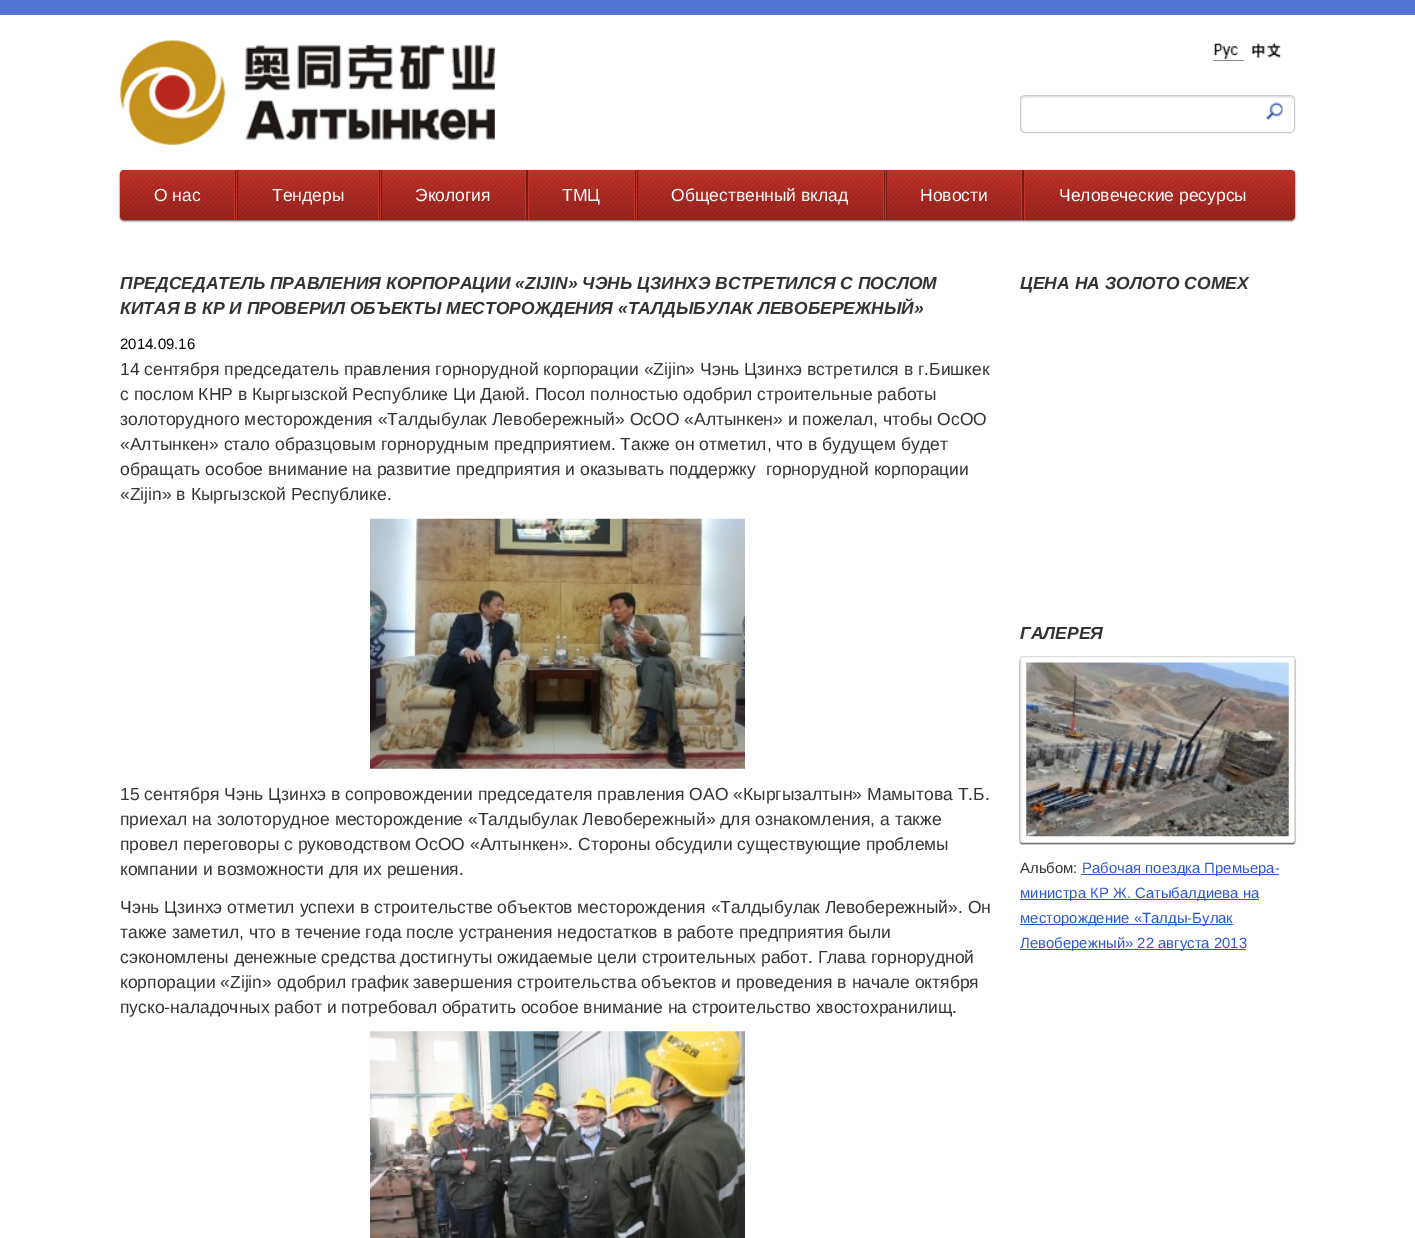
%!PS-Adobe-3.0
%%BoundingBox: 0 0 1415 1238
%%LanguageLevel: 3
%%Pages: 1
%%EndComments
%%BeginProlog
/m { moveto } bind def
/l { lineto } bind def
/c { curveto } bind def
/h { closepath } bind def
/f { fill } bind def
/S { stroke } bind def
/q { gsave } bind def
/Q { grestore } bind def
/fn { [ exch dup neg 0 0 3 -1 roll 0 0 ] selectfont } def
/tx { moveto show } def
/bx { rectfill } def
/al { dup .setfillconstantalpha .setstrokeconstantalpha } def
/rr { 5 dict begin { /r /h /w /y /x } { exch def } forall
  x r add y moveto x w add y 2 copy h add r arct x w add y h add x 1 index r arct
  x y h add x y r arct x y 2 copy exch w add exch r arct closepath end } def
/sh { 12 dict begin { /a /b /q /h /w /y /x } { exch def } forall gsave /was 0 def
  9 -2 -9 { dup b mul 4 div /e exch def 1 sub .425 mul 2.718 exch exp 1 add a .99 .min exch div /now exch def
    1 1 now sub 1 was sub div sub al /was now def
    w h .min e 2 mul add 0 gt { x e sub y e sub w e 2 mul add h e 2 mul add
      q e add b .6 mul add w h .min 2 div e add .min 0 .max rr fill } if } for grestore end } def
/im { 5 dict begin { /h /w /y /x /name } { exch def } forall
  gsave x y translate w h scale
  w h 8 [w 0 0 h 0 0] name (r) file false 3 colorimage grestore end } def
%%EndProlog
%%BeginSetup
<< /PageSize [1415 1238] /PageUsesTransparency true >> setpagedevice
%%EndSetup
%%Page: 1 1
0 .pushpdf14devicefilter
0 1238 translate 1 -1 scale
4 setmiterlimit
1 setgray
0 0 1415 1238 bx
0.329 0.463 0.851 setrgbcolor
0 0 1415 15 bx
(image0.raw) 120 40 375 105 im
(image1.raw) 1213 43 25 16 im
0.553 setgray
1213 60 31 1 bx
(image2.raw) 1251 43 30 15 im
0.925 setgray
1025 98 m 1291 98 l 1294 100 l 1294 101 l 1294 98 1293 96 1290 96 c 1025 96 l 1022 96 1021 98 1021 101 c 1021 99 1023 98 1025 98 c h f
0.8 setgray
1020.5 95.5 274 37 4.5 rr S
(image3.raw) 1266 102 17 18 im
0.333 0.294 0.294 setrgbcolor
120 171 1175 50 4 1 1 sh
q 120 170 1175 50 4 rr clip newpath
<< /ShadingType 2 /ColorSpace /DeviceRGB /Coords [708 170 708 220] /Extend [true true] /Function << /FunctionType 2 /Domain [0 1] /C0 [0.78 0.2 0.161] /C1 [0.608 0.141 0.11] /N 1 >> >> shfill Q
(image4.raw) 120 170 1175 50 im
/LiberationSans-Regular 17.5 fn
1 setgray
(О нас) 154 201 tx
0.463 0.106 0.078 setrgbcolor
235 170 3 50 bx
0.761 0.208 0.169 setrgbcolor
236 170 1 50 bx
234 170 1 50 bx
1 setgray
(Тендеры) 272 201 tx
0.463 0.106 0.078 setrgbcolor
379 170 3 50 bx
0.761 0.208 0.169 setrgbcolor
380 170 1 50 bx
378 170 1 50 bx
1 setgray
(Экология) 415 201 tx
0.463 0.106 0.078 setrgbcolor
526 170 2 50 bx
0.761 0.208 0.169 setrgbcolor
528 170 1 50 bx
525 170 1 50 bx
1 setgray
(ТМЦ) 562 201 tx
0.463 0.106 0.078 setrgbcolor
635 170 3 50 bx
0.761 0.208 0.169 setrgbcolor
636 170 1 50 bx
634 170 1 50 bx
1 setgray
(Общественный вклад) 671 201 tx
0.463 0.106 0.078 setrgbcolor
884 170 3 50 bx
0.761 0.208 0.169 setrgbcolor
885 170 1 50 bx
883 170 1 50 bx
1 setgray
(Новости) 920 201 tx
0.463 0.106 0.078 setrgbcolor
1022 170 2 50 bx
0.761 0.208 0.169 setrgbcolor
1024 170 1 50 bx
1021 170 1 50 bx
1 setgray
(Человеческие ресурсы) 1059 201 tx
/LiberationSans-BoldItalic 17.5 fn
0.2 setgray
(ПРЕДСЕДАТЕЛЬ ПРАВЛЕНИЯ КОРПОРАЦИИ «ZIJIN» ЧЭНЬ ЦЗИНХЭ ВСТРЕТИЛСЯ С ПОСЛОМ) 120 289 tx
(КИТАЯ В КР И ПРОВЕРИЛ ОБЪЕКТЫ МЕСТОРОЖДЕНИЯ «ТАЛДЫБУЛАК ЛЕВОБЕРЕЖНЫЙ») 120 314 tx
/LiberationSans-Regular 15 fn
0 setgray
(2014.09.16) 120 349 tx
/LiberationSans-Regular 17.5 fn
0.2 setgray
(14 сентября председатель правления горнорудной корпорации «Zijin» Чэнь Цзинхэ встретился в г.Бишкек) 120 375 tx
(с послом КНР в Кыргызской Республике Ци Даюй. Посол полностью одобрил строительные работы) 120 400 tx
(золоторудного месторождения «Талдыбулак Левобережный» ОсОО «Алтынкен» и пожелал, чтобы ОсОО) 120 425 tx
(«Алтынкен» стало образцовым горнорудным предприятием. Также он отметил, что в будущем будет) 120 450 tx
(обращать особое внимание на развитие предприятия и оказывать поддержку  горнорудной корпорации) 120 475 tx
(«Zijin» в Кыргызской Республике.) 120 500 tx
(image5.raw) 370 518 375 251 im
(15 сентября Чэнь Цзинхэ в сопровождении председателя правления ОАО «Кыргызалтын» Мамытова Т.Б.) 120 800 tx
(приехал на золоторудное месторождение «Талдыбулак Левобережный» для ознакомления, а также) 120 825 tx
(провел переговоры с руководством ОсОО «Алтынкен». Стороны обсудили существующие проблемы) 120 850 tx
(компании и возможности для их решения.) 120 875 tx
(Чэнь Цзинхэ отметил успехи в строительстве объектов месторождения «Талдыбулак Левобережный». Он) 120 913 tx
(также заметил, что в течение года после устранения недостатков в работе предприятия были) 120 938 tx
(сэкономлены денежные средства достигнуты ожидаемые цели строительных работ. Глава горнорудной) 120 963 tx
(корпорации «Zijin» одобрил график завершения строительства объектов и проведения в начале октября) 120 988 tx
(пуско-наладочных работ и потребовал обратить особое внимание на строительство хвостохранилищ.) 120 1013 tx
(image6.raw) 370 1031 375 207 im
/LiberationSans-BoldItalic 17.5 fn
(ЦЕНА НА ЗОЛОТО COMEX) 1020 289 tx
(ГАЛЕРЕЯ) 1020 639 tx
q
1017 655 m 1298 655 l 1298 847 l 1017 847 l h 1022.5 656 m 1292.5 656 l 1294 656 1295 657 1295 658.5 c 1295 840.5 l 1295 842 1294 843 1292.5 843 c 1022.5 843 l 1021 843 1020 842 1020 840.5 c 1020 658.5 l 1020 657 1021 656 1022.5 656 c h eoclip newpath
0.161 setgray
1020 658 275 186 2.5 0.5 1 sh
Q
0.867 setgray
1020.5 656.5 274 186 2 rr S
(image7.raw) 1026 662 263 175 im
/LiberationSans-Regular 14.9 fn
0.2 setgray
(Альбом:) 1020 873 tx
0.18 0.345 0.82 setrgbcolor
1081 874 198 1 bx
(Рабочая поездка Премьера-) 1082 873 tx
1020 899 239 1 bx
(министра КP Ж. Сатыбалдиева на) 1020 898 tx
1020 924 213 1 bx
(месторождение «Талды-Булак) 1020 923 tx
1020 949 226 1 bx
(Левобережный» 22 августа 2013) 1020 948 tx
.poppdf14devicefilter showpage
%%EOF
